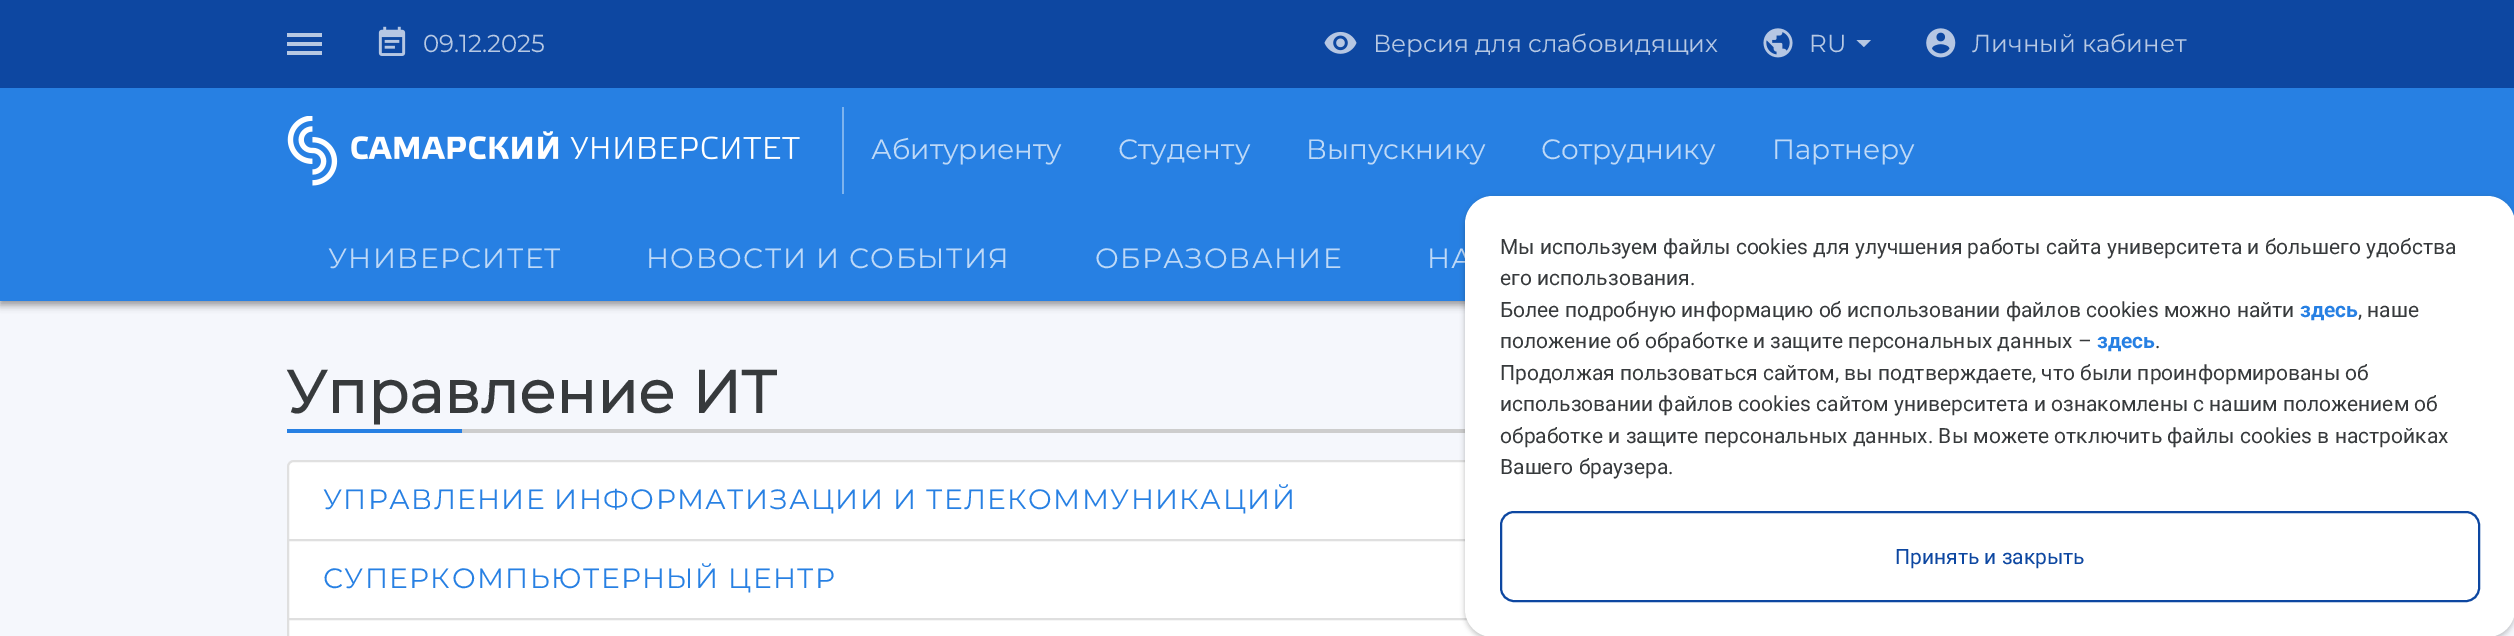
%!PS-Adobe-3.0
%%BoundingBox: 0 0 2514 636
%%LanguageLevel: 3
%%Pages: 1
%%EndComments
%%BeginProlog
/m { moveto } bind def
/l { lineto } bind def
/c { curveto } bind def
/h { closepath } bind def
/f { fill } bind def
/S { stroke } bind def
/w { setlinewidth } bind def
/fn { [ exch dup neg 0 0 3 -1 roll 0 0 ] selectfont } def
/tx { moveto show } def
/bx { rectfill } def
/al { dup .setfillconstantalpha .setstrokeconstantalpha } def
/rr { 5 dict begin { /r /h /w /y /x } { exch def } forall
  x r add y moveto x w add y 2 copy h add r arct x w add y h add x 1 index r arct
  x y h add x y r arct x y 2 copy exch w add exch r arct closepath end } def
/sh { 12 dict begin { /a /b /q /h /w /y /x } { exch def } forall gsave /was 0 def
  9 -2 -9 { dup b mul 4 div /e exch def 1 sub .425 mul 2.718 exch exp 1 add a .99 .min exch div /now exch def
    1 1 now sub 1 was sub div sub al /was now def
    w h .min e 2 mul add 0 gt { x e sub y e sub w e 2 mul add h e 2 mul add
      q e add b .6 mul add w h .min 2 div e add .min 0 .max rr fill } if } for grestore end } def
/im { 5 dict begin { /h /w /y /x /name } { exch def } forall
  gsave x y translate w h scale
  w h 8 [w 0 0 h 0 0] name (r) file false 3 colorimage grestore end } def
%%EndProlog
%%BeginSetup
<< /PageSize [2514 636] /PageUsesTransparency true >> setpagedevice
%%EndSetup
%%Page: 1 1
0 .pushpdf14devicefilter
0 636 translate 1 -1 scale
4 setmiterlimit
0.961 0.969 0.988 setrgbcolor
0 0 2514 636 bx
0 setgray
0 4 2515 301 0 3.5 0.14 sh
0 5 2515 301 0 3.5 0.12 sh
0 2 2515 301 0 4.5 0.2 sh
0.153 0.502 0.89 setrgbcolor
0 88 2514 213 bx
0.051 0.278 0.631 setrgbcolor
0 0 2514 88 bx
0.714 0.784 0.89 setrgbcolor
287 42 35 4 bx
287 33 35 4 bx
287 51 35 4 bx
(image0.raw) 378 26 28 30 im
/Montserrat-Thin 24.5 fn
(09.12.2025) 423 52 tx
(image1.raw) 1324 31 33 23 im
(Версия для слабовидящих) 1373 52 tx
(image2.raw) 1763 28 30 30 im
(RU) 1809 52 tx
1856.5 40 m 1864 47 l 1871 40 l h f
(image3.raw) 1926 28 30 30 im
(Личный кабинет) 1972 52 tx
(image4.raw) 287 116 513 70 im
0.49 0.702 0.933 setrgbcolor
842 107 2 87 bx
/Montserrat-Thin 28 fn
0.745 0.851 0.969 setrgbcolor
(Абитуриенту) 871 159 tx
(Студенту) 1118 159 tx
(Выпускнику) 1306 159 tx
(Сотруднику) 1541 159 tx
(Партнеру) 1772 159 tx
328 268 m 1.4 0 (УНИВЕРСИТЕТ) ashow
646 268 m 1.4 0 (НОВОСТИ И СОБЫТИЯ) ashow
1095 268 m 1.4 0 (ОБРАЗОВАНИЕ) ashow
1427 268 m 1.4 0 (НА) ashow
0.804 setgray
462 429 1003 4 bx
/Montserrat-Bold 59.5 fn
0.216 0.227 0.235 setrgbcolor
286 413 m 0.5 0 (Управление ИТ) ashow
0.153 0.502 0.89 setrgbcolor
287 429 175 4 bx
1 setgray
294 460 m 2223 460 l 2227 460 2230 463 2230 467 c 2230 541 l 287 541 l 287 467 l 287 463 290 460 294 460 c h f
0.12 al
0 setgray
2 w
294 461 m 2223 461 l 2226.5 461 2229 463.5 2229 467 c 2229 540 l 288 540 l 288 467 l 288 463.5 290.5 461 294 461 c h S
/Montserrat-Thin 28 fn
1 al
0.153 0.502 0.89 setrgbcolor
323 509 m 1.4 0 (УПРАВЛЕНИЕ ИНФОРМАТИЗАЦИИ И ТЕЛЕКОММУНИКАЦИЙ) ashow
1 setgray
289 541 1178 77 bx
0.875 setgray
288 540 1941 79 rectstroke
0.153 0.502 0.89 setrgbcolor
323 588 m 1.4 0 (СУПЕРКОМПЬЮТЕРНЫЙ ЦЕНТР) ashow
1 setgray
289 620 1197 16 bx
0.875 setgray
288 619 1941 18 rectstroke
0 setgray
1465 196 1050 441 28 2.5 0.08 sh
1465 200 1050 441 28 2.5 0.17 sh
1 setgray
1465 196 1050 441 28 rr f
/Roboto-Regular 21 fn
0.216 0.227 0.235 setrgbcolor
(Мы используем файлы cookies для улучшения работы сайта университета и большего удобства) 1500 254 tx
(его использования.) 1500 285 tx
(Более подробную информацию об использовании файлов cookies можно найти) 1500 317 tx
/Roboto-Bold 21 fn
0.153 0.502 0.89 setrgbcolor
(здесь) 2300 317 tx
/Roboto-Regular 21 fn
0.216 0.227 0.235 setrgbcolor
(, наше) 2358 317 tx
(положение об обработке и защите персональных данных –) 1500 348 tx
/Roboto-Bold 21 fn
0.153 0.502 0.89 setrgbcolor
(здесь) 2097 348 tx
/Roboto-Regular 21 fn
0.216 0.227 0.235 setrgbcolor
(.) 2155 348 tx
(Продолжая пользоваться сайтом, вы подтверждаете, что были проинформированы об) 1500 380 tx
(использовании файлов cookies сайтом университета и ознакомлены с нашим положением об) 1500 411 tx
(обработке и защите персональных данных. Вы можете отключить файлы cookies в настройках) 1500 443 tx
(Вашего браузера.) 1500 474 tx
0.051 0.278 0.631 setrgbcolor
1501 512 978 89 13 rr S
(Принять и закрыть) 1895 564 tx
.poppdf14devicefilter showpage
%%EOF
